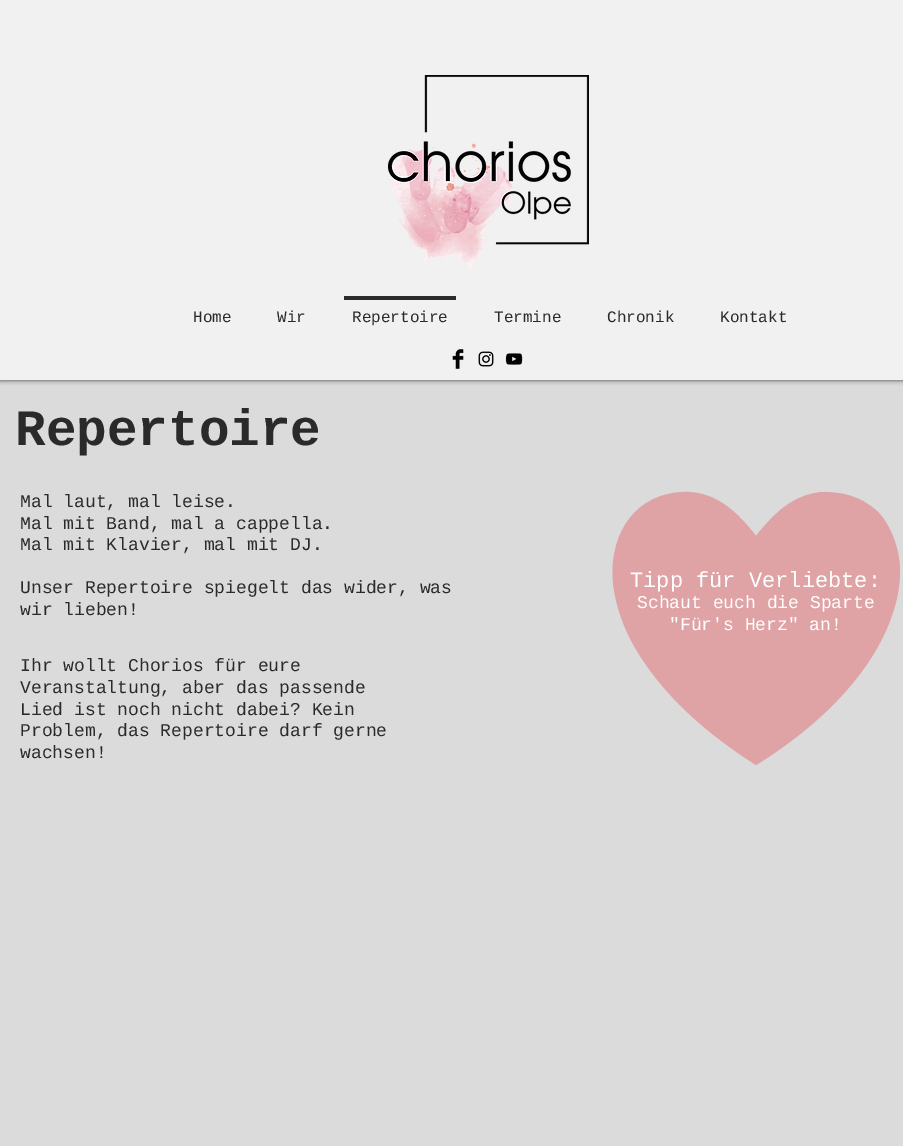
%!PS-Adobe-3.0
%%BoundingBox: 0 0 903 1146
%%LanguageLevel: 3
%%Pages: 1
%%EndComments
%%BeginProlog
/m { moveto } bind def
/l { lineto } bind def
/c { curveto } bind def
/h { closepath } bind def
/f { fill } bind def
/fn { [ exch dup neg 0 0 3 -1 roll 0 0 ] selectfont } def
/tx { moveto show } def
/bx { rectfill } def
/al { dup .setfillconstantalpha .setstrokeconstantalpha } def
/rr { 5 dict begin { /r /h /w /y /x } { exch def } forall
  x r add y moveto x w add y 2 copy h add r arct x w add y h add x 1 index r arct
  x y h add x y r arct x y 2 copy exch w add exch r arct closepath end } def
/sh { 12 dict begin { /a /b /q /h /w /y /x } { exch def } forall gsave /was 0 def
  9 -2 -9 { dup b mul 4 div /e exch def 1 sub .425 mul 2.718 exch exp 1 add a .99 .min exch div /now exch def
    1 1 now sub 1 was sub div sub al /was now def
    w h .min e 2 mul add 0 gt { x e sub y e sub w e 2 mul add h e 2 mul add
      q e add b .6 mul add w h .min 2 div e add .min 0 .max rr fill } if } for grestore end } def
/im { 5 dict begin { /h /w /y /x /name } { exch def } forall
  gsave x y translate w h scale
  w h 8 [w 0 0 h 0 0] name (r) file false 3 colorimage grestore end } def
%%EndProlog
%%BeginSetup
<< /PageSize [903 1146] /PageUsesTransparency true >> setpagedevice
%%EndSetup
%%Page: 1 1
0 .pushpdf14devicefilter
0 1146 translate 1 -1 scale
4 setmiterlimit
0.859 setgray
0 0 903 1146 bx
0 setgray
0 0 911 380 0 2.5 0.7 sh
0.945 setgray
0 0 903 380 bx
(image0.raw) 388 75 201 194 im
/LiberationMono-Regular 16 fn
0.165 setgray
(Home) 193 322 tx
(Wir) 277 322 tx
344 296 112 4 bx
(Repertoire) 352 322 tx
(Termine) 494 322 tx
(Chronik) 607 322 tx
(Kontakt) 720 322 tx
(image1.raw) 452 349 12 20 im
(image2.raw) 478 351 16 16 im
(image3.raw) 505 353 18 12 im
/LiberationMono-Bold 51 fn
(Repertoire) 15 445 tx
/LiberationMono-Regular 18 fn
(Mal laut, mal leise.) 20 507 tx
(Mal mit Band, mal a cappella.) 20 529 tx
(Mal mit Klavier, mal mit DJ.) 20 550 tx
(Unser Repertoire spiegelt das wider, was) 20 593 tx
(wir lieben!) 20 615 tx
0.875 0.639 0.651 setrgbcolor
877 511 m 860 496 843 492 822 492 c 799 494 779 506 756 536 c 733 506 707 485 668 494 c 624 504 607 549 614 590 c 618 615 628 638 642 659 c 671 703 712 737 756 765 c 761 762 l 867 694 900 620 900 571 c 900 546 888 521 877 511 c h f
/LiberationMono-Regular 22 fn
1 setgray
(Tipp für Verliebte:) 630 587 tx
/LiberationMono-Regular 18 fn
(Schaut euch die Sparte) 637 608 tx
("Für's Herz" an!) 669 630 tx
0.165 setgray
(Ihr wollt Chorios für eure) 20 671 tx
(Veranstaltung, aber das passende) 20 693 tx
(Lied ist noch nicht dabei? Kein) 20 715 tx
(Problem, das Repertoire darf gerne) 20 736 tx
(wachsen!) 20 758 tx
.poppdf14devicefilter showpage
%%EOF
